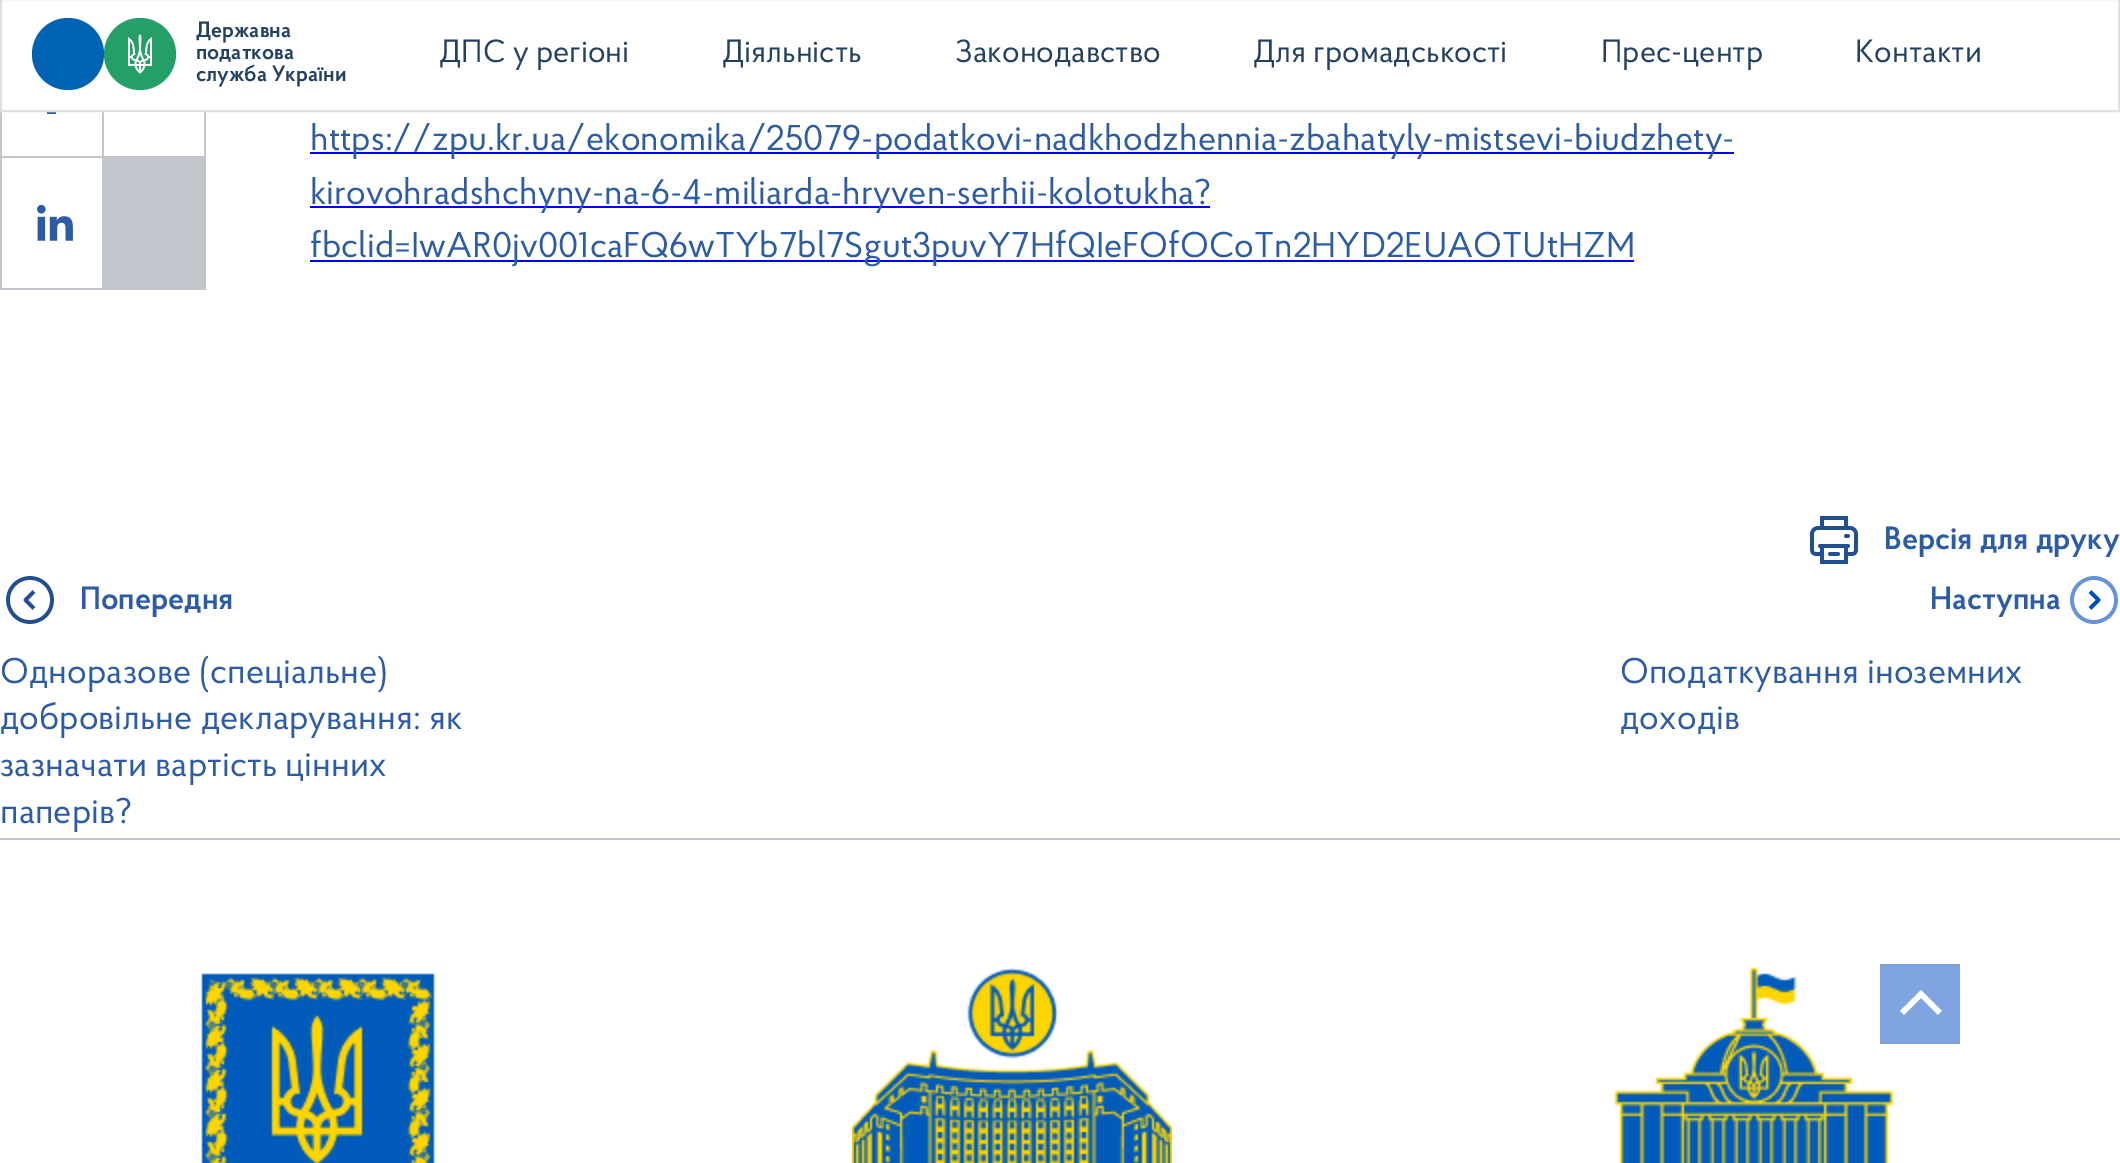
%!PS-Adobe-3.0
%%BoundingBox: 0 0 2120 1163
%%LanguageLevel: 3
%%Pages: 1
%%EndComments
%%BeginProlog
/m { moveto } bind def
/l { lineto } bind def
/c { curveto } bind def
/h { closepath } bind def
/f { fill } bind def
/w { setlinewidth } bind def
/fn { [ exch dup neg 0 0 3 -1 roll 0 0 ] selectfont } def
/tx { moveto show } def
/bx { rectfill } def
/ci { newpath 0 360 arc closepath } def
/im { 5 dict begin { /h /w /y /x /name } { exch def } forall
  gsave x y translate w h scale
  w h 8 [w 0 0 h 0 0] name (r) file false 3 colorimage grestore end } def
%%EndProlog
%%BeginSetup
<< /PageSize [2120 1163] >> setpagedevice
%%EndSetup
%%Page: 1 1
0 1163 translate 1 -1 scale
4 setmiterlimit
1 setgray
0 0 2120 1163 bx
0.761 0.773 0.796 setrgbcolor
0 112 206 178 bx
1 setgray
2 112 100 44 bx
0.176 0.361 0.651 setrgbcolor
47 114 m 47 92 l 42 92 l 42 85 l 47 85 l 48 76 l 49 68 58 68 64 69 c 64 76 l 55 76 56 76 56 85 c 64 85 l 64 92 l 56 92 l 56 114 l h f
1 setgray
42 68 22 42 bx
0.878 setgray
2 w
1 -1 2118 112 rectstroke
0 0.384 0.698 setrgbcolor
68 54 36 ci f
0.141 0.624 0.404 setrgbcolor
140 54 36 ci f
(image0.raw) 128 34 24 40 im
/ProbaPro-SemiBold 22 fn
0.137 0.255 0.38 setrgbcolor
(Державна) 196 37 tx
(податкова) 196 59 tx
(служба України) 196 81 tx
/ProbaPro-Regular 32 fn
(ДПС у регіоні) 439 62 tx
(Діяльність) 722 62 tx
(Законодавство) 955 62 tx
(Для громадськості) 1253 62 tx
(Прес-центр) 1601 62 tx
(Контакти) 1855 62 tx
1 setgray
104 112 100 44 bx
2 158 100 130 bx
(image1.raw) 37 204 36 37 im
0 0 1 setrgbcolor
310 152 1424 2 bx
/ProbaPro-Regular 35.85 fn
0.176 0.361 0.651 setrgbcolor
(https://zpu.kr.ua/ekonomika/25079-podatkovi-nadkhodzhennia-zbahatyly-mistsevi-biudzhety-) 310 150 tx
0 0 1 setrgbcolor
310 206 900 2 bx
0.176 0.361 0.651 setrgbcolor
(kirovohradshchyny-na-6-4-miliarda-hryven-serhii-kolotukha?) 310 204 tx
0 0 1 setrgbcolor
310 260 1324 2 bx
0.176 0.361 0.651 setrgbcolor
(fbclid=IwAR0jv001caFQ6wTYb7bl7Sgut3puvY7HfQIeFOfOCoTn2HYD2EUAOTUtHZM) 310 257 tx
(image2.raw) 1810 516 48 48 im
/ProbaPro-SemiBold 32 fn
(Версія для друку) 1884 549 tx
(image3.raw) 6 576 48 48 im
(Попередня) 80 609 tx
/ProbaPro-Regular 35.85 fn
(Одноразове \(спеціальне\)) 0 683 tx
(добровільне декларування: як) 0 729 tx
(зазначати вартість цінних) 0 776 tx
(паперів?) 0 823 tx
/ProbaPro-SemiBold 32 fn
(Наступна) 1930 609 tx
(image4.raw) 2070 576 48 48 im
/ProbaPro-Regular 35.85 fn
(Оподаткування іноземних) 1620 683 tx
(доходів) 1620 729 tx
0.761 0.773 0.796 setrgbcolor
0 838 2120 2 bx
(image5.raw) 201 973 234 190 im
(image6.raw) 852 967 320 196 im
(image7.raw) 1613 967 282 196 im
(image8.raw) 1880 964 80 80 im
showpage
%%EOF
